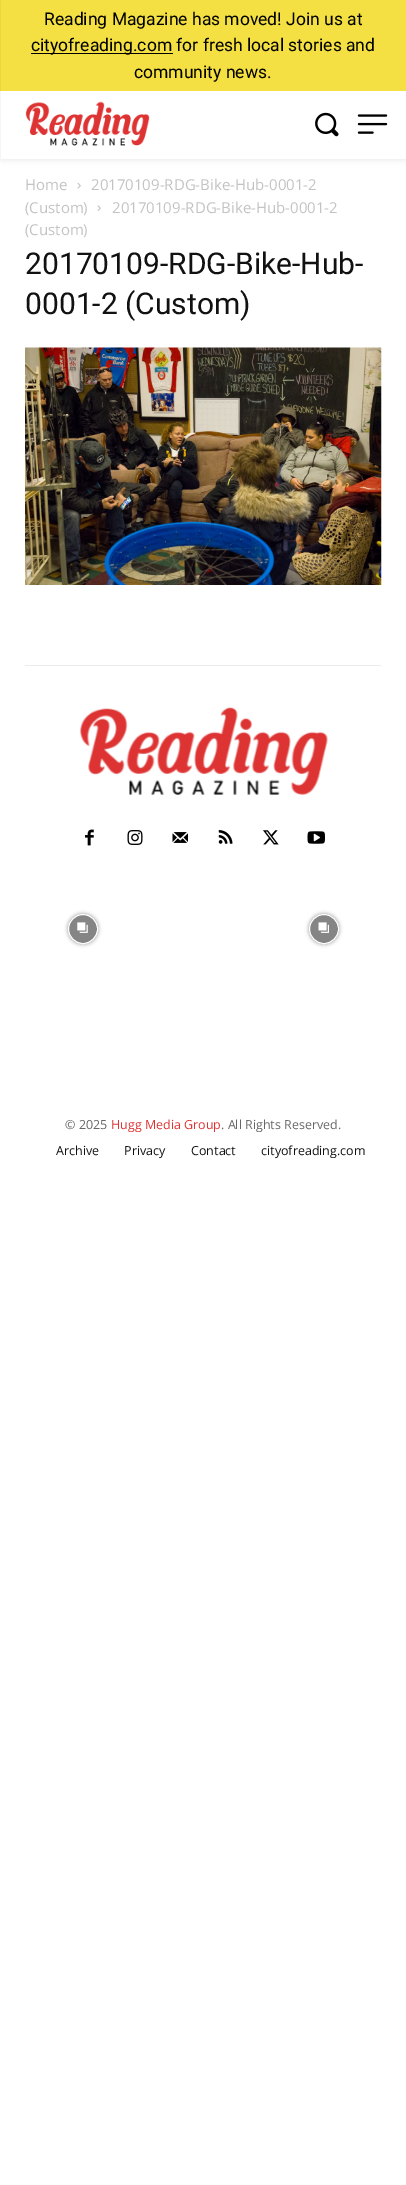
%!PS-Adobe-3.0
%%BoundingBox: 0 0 406 2185
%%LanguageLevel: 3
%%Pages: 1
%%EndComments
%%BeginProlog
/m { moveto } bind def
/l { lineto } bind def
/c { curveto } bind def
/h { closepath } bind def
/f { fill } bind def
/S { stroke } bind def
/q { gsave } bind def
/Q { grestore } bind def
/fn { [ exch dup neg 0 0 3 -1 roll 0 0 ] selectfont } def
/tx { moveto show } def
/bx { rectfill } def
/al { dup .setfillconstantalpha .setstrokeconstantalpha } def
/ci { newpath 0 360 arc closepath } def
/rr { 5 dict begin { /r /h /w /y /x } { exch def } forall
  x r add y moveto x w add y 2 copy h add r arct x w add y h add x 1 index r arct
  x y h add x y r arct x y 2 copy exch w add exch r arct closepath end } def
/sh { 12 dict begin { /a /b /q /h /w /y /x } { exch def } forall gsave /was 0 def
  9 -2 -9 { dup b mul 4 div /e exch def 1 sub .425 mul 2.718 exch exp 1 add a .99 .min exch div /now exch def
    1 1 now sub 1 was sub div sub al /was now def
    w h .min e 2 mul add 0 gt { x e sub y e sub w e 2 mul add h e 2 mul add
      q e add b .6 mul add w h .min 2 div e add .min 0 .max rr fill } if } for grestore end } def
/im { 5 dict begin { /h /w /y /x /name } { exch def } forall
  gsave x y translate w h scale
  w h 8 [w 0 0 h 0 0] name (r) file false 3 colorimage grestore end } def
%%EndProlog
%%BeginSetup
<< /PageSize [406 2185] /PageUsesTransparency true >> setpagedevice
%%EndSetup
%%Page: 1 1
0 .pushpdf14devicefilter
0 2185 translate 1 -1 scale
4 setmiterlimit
1 setgray
0 0 406 2185 bx
0.957 0.878 0.259 setrgbcolor
0 0 406 91 bx
0 setgray
31 53 142 1 bx
(image0.raw) 25 101 125 45 im
(image1.raw) 315 112 24 25 im
(image2.raw) 357 114 31 20 im
q
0 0 m 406 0 l 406 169 l 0 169 l h 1 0 m 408 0 l 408 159 l 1 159 l h eoclip newpath
1 1 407 159 0 2.5 0.08 sh
Q
/Roboto-Regular 17.5 fn
(Reading Magazine has moved! Join us at) 44 25 tx
(cityofreading.com for fresh local stories and) 31 51 tx
(community news.) 134 78 tx
/OpenSans-Regular 15 fn
0.765 setgray
(Home) 25 190 tx
(image3.raw) 77 183 4 6 im
(20170109-RDG-Bike-Hub-0001-2) 91 190 tx
(\(Custom\)) 25 213 tx
(image4.raw) 97 205 4 6 im
(20170109-RDG-Bike-Hub-0001-2) 112 213 tx
(\(Custom\)) 25 235 tx
/Roboto-Regular 30 fn
0.067 setgray
(20170109-RDG-Bike-Hub-) 25 274 tx
(0001-2 \(Custom\)) 25 314 tx
(image5.raw) 25 347 357 238 im
0.922 setgray
25 665 356 1 bx
(image6.raw) 80 707 248 88 im
(image7.raw) 85 829 9 17 im
(image8.raw) 127 830 16 15 im
(image9.raw) 172 832 16 11 im
(image10.raw) 218 830 15 14 im
(image11.raw) 263 830 16 15 im
(image12.raw) 307 831 18 13 im
q
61 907 m 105 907 l 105 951 l 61 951 l h 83 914 m 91.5 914 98 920.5 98 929 c 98 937.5 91.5 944 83 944 c 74.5 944 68 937.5 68 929 c 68 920.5 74.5 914 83 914 c h eoclip newpath
0 setgray
68 914 30 30 15 2 0.4 sh
Q
0.48 al
0 setgray
83 929 14.5 ci f
1 al
1 setgray
83 929 14.5 ci S
(image13.raw) 77 922 11 11 im
q
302 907 m 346 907 l 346 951 l 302 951 l h 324 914 m 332.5 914 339 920.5 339 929 c 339 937.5 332.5 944 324 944 c 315.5 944 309 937.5 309 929 c 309 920.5 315.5 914 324 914 c h eoclip newpath
0 setgray
309 914 30 30 15 2 0.4 sh
Q
0.48 al
0 setgray
324 929 14.5 ci f
1 al
1 setgray
324 929 14.5 ci S
(image14.raw) 318 922 11 11 im
/OpenSans-Regular 12.5 fn
0.4 setgray
(© 2025) 65 1129 tx
0.867 0.2 0.2 setrgbcolor
(Hugg Media Group) 111 1129 tx
0.4 setgray
(. All Rights Reserved.) 221 1129 tx
0.067 setgray
(Archive) 56 1155 tx
(Privacy) 124 1155 tx
(Contact) 191 1155 tx
(cityofreading.com) 261 1155 tx
.poppdf14devicefilter showpage
%%EOF
